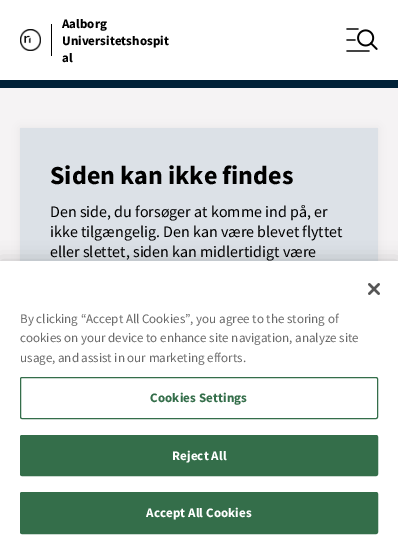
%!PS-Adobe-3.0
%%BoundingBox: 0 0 398 550
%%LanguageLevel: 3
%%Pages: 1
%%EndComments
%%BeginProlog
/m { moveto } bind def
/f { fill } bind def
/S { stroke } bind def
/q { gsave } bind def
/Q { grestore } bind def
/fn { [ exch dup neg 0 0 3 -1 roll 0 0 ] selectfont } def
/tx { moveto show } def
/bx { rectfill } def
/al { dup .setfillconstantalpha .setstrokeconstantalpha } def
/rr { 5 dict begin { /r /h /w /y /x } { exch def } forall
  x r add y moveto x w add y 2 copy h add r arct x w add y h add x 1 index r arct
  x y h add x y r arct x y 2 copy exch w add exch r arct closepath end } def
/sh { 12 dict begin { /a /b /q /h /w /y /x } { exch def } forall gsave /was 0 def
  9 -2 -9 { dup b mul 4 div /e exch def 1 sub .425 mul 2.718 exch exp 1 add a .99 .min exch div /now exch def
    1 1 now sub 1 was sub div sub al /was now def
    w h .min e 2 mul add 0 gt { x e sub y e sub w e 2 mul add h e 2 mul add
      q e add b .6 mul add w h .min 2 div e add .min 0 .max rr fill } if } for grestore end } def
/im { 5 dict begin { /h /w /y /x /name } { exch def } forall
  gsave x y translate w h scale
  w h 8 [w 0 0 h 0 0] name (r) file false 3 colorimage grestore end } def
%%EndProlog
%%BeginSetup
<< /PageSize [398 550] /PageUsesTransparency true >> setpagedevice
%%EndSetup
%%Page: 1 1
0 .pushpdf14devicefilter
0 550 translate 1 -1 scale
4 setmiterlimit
0.961 0.953 0.957 setrgbcolor
0 0 398 550 bx
0 0.129 0.22 setrgbcolor
0 80 398 8 bx
1 setgray
0 0 398 80 bx
(image0.raw) 20 29 21 22 im
0 setgray
51 24 1 32 bx
/SourceSansPro-Bold 13 fn
(Aalborg) 62 28 tx
(Universitetshospit) 62 45 tx
(al) 62 62 tx
(image1.raw) 346 28 32 24 im
20 128 358 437 0 5 0.05 sh
0.863 0.882 0.906 setrgbcolor
20 128 358 133 bx
/SourceSansPro-Bold 26 fn
0 setgray
(Siden kan ikke findes) 50 184 tx
/SourceSansPro-Regular 16 fn
(Den side, du forsøger at komme ind på, er) 50 217 tx
(ikke tilgængelig. Den kan være blevet flyttet) 50 237 tx
(eller slettet, siden kan midlertidigt være) 50 257 tx
0 261 398 289 0 9 0.2 sh
1 setgray
0 261 398 289 bx
(image2.raw) 368 283 12 12 im
/SourceSansPro-Regular 13 fn
0.412 setgray
(By clicking “Accept All Cookies”, you agree to the storing of) 20 323 tx
(cookies on your device to enhance site navigation, analyze site) 20 342 tx
(usage, and assist in our marketing efforts.) 20 362 tx
0.204 0.431 0.29 setrgbcolor
20.5 377.5 357 41 1.5 rr S
/SourceSansPro-Bold 13 fn
150 402 m 0.1 0 (Cookies Settings) ashow
20.5 435.5 357 40 1.5 rr q f Q
S
1 setgray
172 460 m 0.1 0 (Reject All) ashow
0.204 0.431 0.29 setrgbcolor
20.5 492.5 357 41 1.5 rr q f Q
S
1 setgray
146 517 m 0.1 0 (Accept All Cookies) ashow
.poppdf14devicefilter showpage
%%EOF
